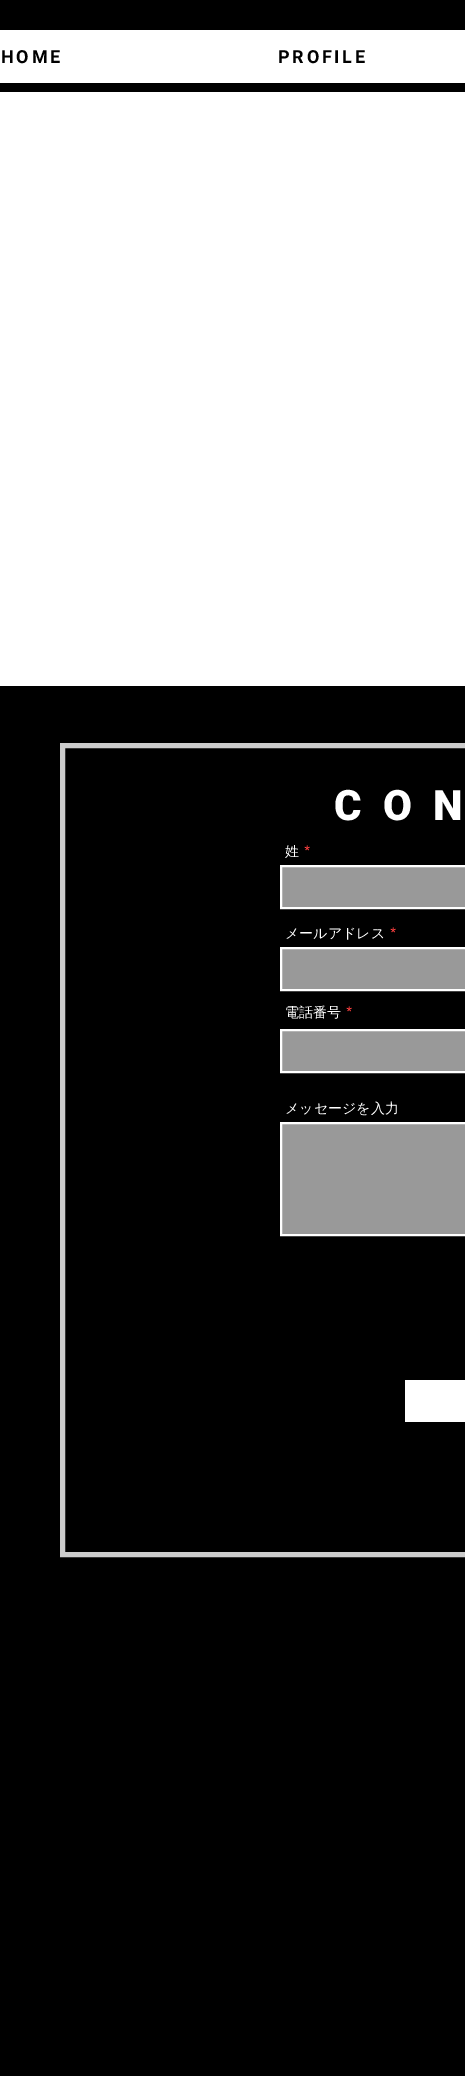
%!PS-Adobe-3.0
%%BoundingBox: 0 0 465 2076
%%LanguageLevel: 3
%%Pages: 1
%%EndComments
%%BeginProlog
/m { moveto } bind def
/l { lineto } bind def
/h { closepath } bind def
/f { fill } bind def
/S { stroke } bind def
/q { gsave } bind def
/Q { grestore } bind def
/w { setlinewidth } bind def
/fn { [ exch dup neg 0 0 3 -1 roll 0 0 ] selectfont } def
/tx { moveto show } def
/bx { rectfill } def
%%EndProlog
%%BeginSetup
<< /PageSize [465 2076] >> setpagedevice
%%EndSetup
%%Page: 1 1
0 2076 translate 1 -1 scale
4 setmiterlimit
0 setgray
0 0 465 2076 bx
1 setgray
0 30 465 53 bx
/Roboto-Bold 18 fn
0 setgray
1 63 m 2.75 0 (HOME) ashow
278 63 m 2.75 0 (PROFILE) ashow
1 setgray
0 92 465 594 bx
0.8 setgray
5 w
62.5 745.5 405 809 rectstroke
/Roboto-Black 42 fn
1 setgray
334 820 m 21 0 (CON) ashow
/WenQuanYiZenHei-Medium 14 fn
(姓) 285 856 tx
/futura-Regular 14 fn
1 0.251 0.251 setrgbcolor
(*) 303 856 tx
0.6 setgray
281 866 m 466 866 l 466 908 l 281 908 l h q f Q
1 setgray
2 w
S
/WenQuanYiZenHei-Medium 14 fn
(メールアドレス) 285 938 tx
/futura-Regular 14 fn
1 0.251 0.251 setrgbcolor
(*) 389 938 tx
0.6 setgray
281 948 m 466 948 l 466 990 l 281 990 l h q f Q
1 setgray
S
/WenQuanYiZenHei-Medium 14 fn
(電話番号) 285 1017 tx
/futura-Regular 14 fn
1 0.251 0.251 setrgbcolor
(*) 345 1017 tx
0.6 setgray
281 1030 m 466 1030 l 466 1072 l 281 1072 l h q f Q
1 setgray
S
/WenQuanYiZenHei-Medium 14 fn
(メッセージを入力) 285 1113 tx
0.6 setgray
281 1123 m 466 1123 l 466 1235 l 281 1235 l h q f Q
1 setgray
S
405 1380 60 42 bx
showpage
%%EOF
